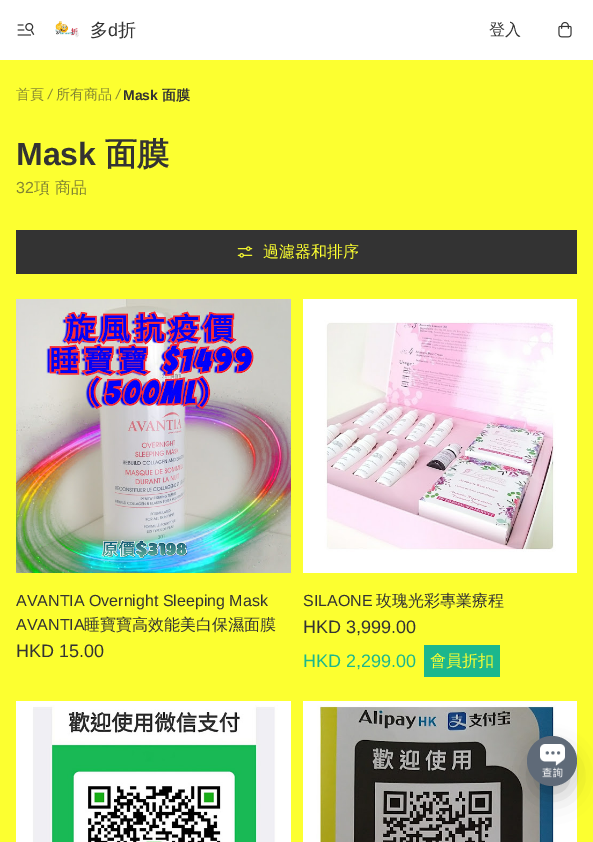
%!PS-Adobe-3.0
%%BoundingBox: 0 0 593 842
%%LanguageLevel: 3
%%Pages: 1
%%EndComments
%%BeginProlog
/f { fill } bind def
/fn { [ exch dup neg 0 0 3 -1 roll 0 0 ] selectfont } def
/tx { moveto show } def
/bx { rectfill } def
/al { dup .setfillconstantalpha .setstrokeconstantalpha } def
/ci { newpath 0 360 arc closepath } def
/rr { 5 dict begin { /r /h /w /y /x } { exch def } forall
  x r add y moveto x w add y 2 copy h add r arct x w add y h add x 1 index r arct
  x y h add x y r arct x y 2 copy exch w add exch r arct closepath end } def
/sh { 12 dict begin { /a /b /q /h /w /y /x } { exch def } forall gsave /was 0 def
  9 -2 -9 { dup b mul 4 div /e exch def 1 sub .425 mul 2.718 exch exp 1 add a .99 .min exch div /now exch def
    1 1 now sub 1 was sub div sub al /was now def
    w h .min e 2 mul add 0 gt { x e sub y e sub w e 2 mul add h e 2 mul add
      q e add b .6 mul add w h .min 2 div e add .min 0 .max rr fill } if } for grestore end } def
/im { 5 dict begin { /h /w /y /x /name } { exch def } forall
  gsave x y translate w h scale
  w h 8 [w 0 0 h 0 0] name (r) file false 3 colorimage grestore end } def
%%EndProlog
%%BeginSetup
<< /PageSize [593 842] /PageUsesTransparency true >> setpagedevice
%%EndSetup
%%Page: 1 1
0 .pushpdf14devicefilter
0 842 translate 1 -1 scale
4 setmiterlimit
0.988 1 0.188 setrgbcolor
0 0 593 842 bx
1 setgray
0 0 593 60 bx
(image0.raw) 17 22 18 14 im
(image1.raw) 55 21 24 17 im
/WenQuanYiZenHei-Medium 18 fn
0.2 setgray
(多) 90 36 tx
/LiberationSans-Regular 18 fn
(d) 108 36 tx
/WenQuanYiZenHei-Medium 18 fn
(折) 118 36 tx
/WenQuanYiZenHei-Medium 16 fn
(登入) 489 35 tx
(image2.raw) 558 21 14 17 im
/WenQuanYiZenHei-Medium 14 fn
0.514 0.522 0.196 setrgbcolor
(首頁) 16 99 tx
/LiberationSans-Italic 14 fn
(/) 48 99 tx
/WenQuanYiZenHei-Medium 14 fn
(所有商品) 56 99 tx
/LiberationSans-Italic 14 fn
(/) 116 99 tx
/LiberationSans-Bold 14 fn
0.2 setgray
(Mask) 123 100 tx
/WenQuanYiZenHei-Bold 14 fn
(面膜) 162 100 tx
/LiberationSans-Bold 32 fn
(Mask) 16 165 tx
/WenQuanYiZenHei-Bold 32 fn
(面膜) 105 165 tx
/LiberationSans-Regular 16 fn
0.514 0.522 0.196 setrgbcolor
(32) 16 193 tx
/WenQuanYiZenHei-Medium 16 fn
(項 商品) 34 193 tx
0.2 setgray
16 230 561 44 bx
(image3.raw) 237 246 16 12 im
0.988 1 0.188 setrgbcolor
(過濾器和排序) 263 257 tx
(image4.raw) 16 299 275 274 im
/LiberationSans-Regular 16 fn
0.2 setgray
(AVANTIA Overnight Sleeping Mask) 16 606 tx
(AVANTIA) 16 630 tx
/WenQuanYiZenHei-Medium 16 fn
(睡寶寶高效能美白保濕面膜) 84 630 tx
/LiberationSans-Regular 18 fn
(HKD 15.00) 16 657 tx
(image5.raw) 303 299 274 274 im
/LiberationSans-Regular 16 fn
(SILAONE) 303 606 tx
/WenQuanYiZenHei-Medium 16 fn
(玫瑰光彩專業療程) 376 606 tx
/LiberationSans-Regular 18 fn
(HKD 3,999.00) 303 633 tx
0.11 0.718 0.553 setrgbcolor
(HKD 2,299.00) 303 667 tx
424 645 76 32 bx
/WenQuanYiZenHei-Medium 16 fn
0.988 1 0.188 setrgbcolor
(會員折扣) 430 666 tx
(image6.raw) 16 701 275 141 im
(image7.raw) 303 701 274 141 im
0 setgray
537 761 30 30 15 15 0.3 sh
527 741 50 50 25 10 0.05 sh
0.373 0.416 0.471 setrgbcolor
552 761 25 ci f
(image8.raw) 540 744 25 34 im
.poppdf14devicefilter showpage
%%EOF
